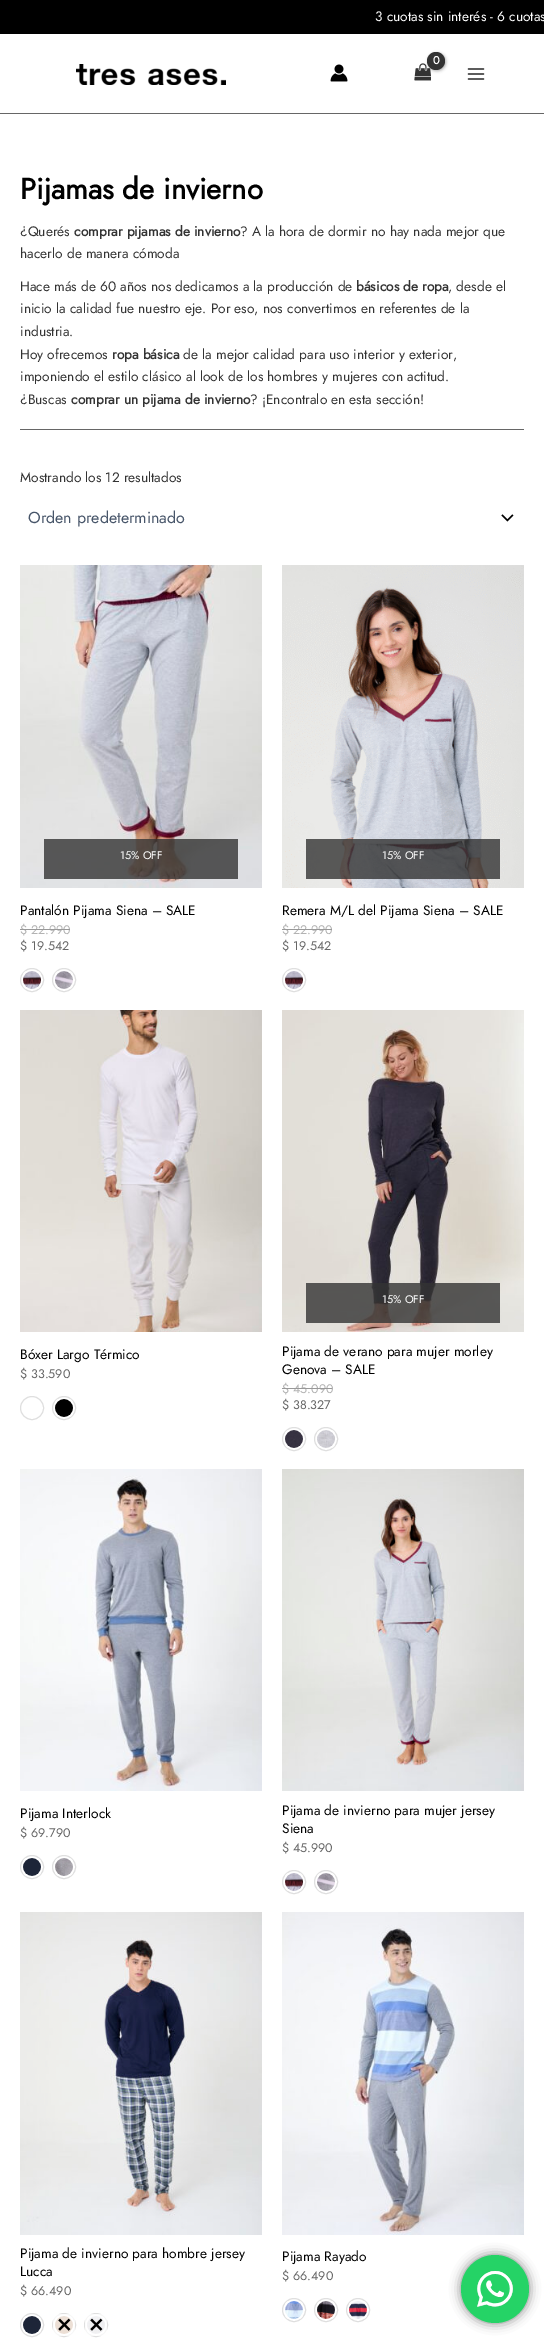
%!PS-Adobe-3.0
%%BoundingBox: 0 0 544 2338
%%LanguageLevel: 3
%%Pages: 1
%%EndComments
%%BeginProlog
/f { fill } bind def
/S { stroke } bind def
/fn { [ exch dup neg 0 0 3 -1 roll 0 0 ] selectfont } def
/tx { moveto show } def
/bx { rectfill } def
/al { dup .setfillconstantalpha .setstrokeconstantalpha } def
/ci { newpath 0 360 arc closepath } def
/rr { 5 dict begin { /r /h /w /y /x } { exch def } forall
  x r add y moveto x w add y 2 copy h add r arct x w add y h add x 1 index r arct
  x y h add x y r arct x y 2 copy exch w add exch r arct closepath end } def
/sh { 12 dict begin { /a /b /q /h /w /y /x } { exch def } forall gsave /was 0 def
  9 -2 -9 { dup b mul 4 div /e exch def 1 sub .425 mul 2.718 exch exp 1 add a .99 .min exch div /now exch def
    1 1 now sub 1 was sub div sub al /was now def
    w h .min e 2 mul add 0 gt { x e sub y e sub w e 2 mul add h e 2 mul add
      q e add b .6 mul add w h .min 2 div e add .min 0 .max rr fill } if } for grestore end } def
/im { 5 dict begin { /h /w /y /x /name } { exch def } forall
  gsave x y translate w h scale
  w h 8 [w 0 0 h 0 0] name (r) file false 3 colorimage grestore end } def
%%EndProlog
%%BeginSetup
<< /PageSize [544 2338] /PageUsesTransparency true >> setpagedevice
%%EndSetup
%%Page: 1 1
0 .pushpdf14devicefilter
0 2338 translate 1 -1 scale
4 setmiterlimit
1 setgray
0 0 544 2338 bx
0 setgray
0 0 544 34 bx
/Jost-Regular 13.7 fn
1 setgray
(3 cuotas sin interés - 6 cuotas) 375 21 tx
0.4 setgray
0 113 544 1 bx
(image0.raw) 414 63 17 18 im
0 setgray
428 53 18 18 9 1.5 0.3 sh
0.2 setgray
436 61 9 ci f
/Jost-Bold 11 fn
1 setgray
(0) 433 64 tx
(image1.raw) 330 64 18 18 im
(image2.raw) 467 68 18 12 im
(image3.raw) 76 64 150 21 im
0.4 setgray
20 429 504 1 bx
/Jost-Bold 29.25 fn
0 setgray
(Pijamas de invierno) 20 199 tx
/Jost-Regular 13.7 fn
0.2 setgray
(¿Querés) 20 236 tx
/Jost-Bold 13.7 fn
(comprar pijamas de invierno) 74 236 tx
/Jost-Regular 13.7 fn
(? A la hora de dormir no hay nada mejor que) 240 236 tx
(hacerlo de manera cómoda) 20 258 tx
(Hace más de 60 años nos dedicamos a la producción de) 20 291 tx
/Jost-Bold 13.7 fn
(básicos de ropa) 356 291 tx
/Jost-Regular 13.7 fn
(, desde el) 448 291 tx
(inicio la calidad fue nuestro eje. Por eso, nos convertimos en referentes de la) 20 313 tx
(industria.) 20 336 tx
(Hoy ofrecemos) 20 359 tx
/Jost-Bold 13.7 fn
(ropa básica) 112 359 tx
/Jost-Regular 13.7 fn
(de la mejor calidad para uso interior y exterior,) 183 359 tx
(imponiendo el estilo clásico al look de los hombres y mujeres con actitud.) 20 381 tx
(¿Buscas) 20 404 tx
/Jost-Bold 13.7 fn
(comprar un pijama de invierno) 71 404 tx
/Jost-Regular 13.7 fn
(? ¡Encontralo en esta sección!) 250 404 tx
(Mostrando los 12 resultados) 20 482 tx
(image4.raw) 501 514 13 8 im
/Jost-Regular 16 fn
0.278 0.333 0.412 setrgbcolor
(Orden predeterminado) 28 523 tx
(image5.raw) 20 565 242 323 im
0.8 al
0.2 setgray
44 839 194 40 bx
/Jost-Regular 11 fn
1 al
1 setgray
(15% OFF) 120 859 tx
/Jost-Regular 13.7 fn
0 setgray
(Pantalón Pijama Siena – SALE) 20 915 tx
/Jost-Regular 12.5 fn
0.702 setgray
($ 22.990) 20 934 tx
0.6 setgray
20 929 50 1 bx
0.4 setgray
($ 19.542) 20 950 tx
0.875 setgray
32 980 11.5 ci S
(image6.raw) 23 971 18 18 im
64 980 11.5 ci S
(image7.raw) 55 971 18 18 im
(image8.raw) 282 565 242 323 im
0.8 al
0.2 setgray
306 839 194 40 bx
/Jost-Regular 11 fn
1 al
1 setgray
(15% OFF) 382 859 tx
/Jost-Regular 13.7 fn
0 setgray
(Remera M/L del Pijama Siena – SALE) 282 915 tx
/Jost-Regular 12.5 fn
0.702 setgray
($ 22.990) 282 934 tx
0.6 setgray
282 929 50 1 bx
0.4 setgray
($ 19.542) 282 950 tx
0.875 setgray
294 980 11.5 ci S
(image9.raw) 285 971 18 18 im
(image10.raw) 20 1010 242 322 im
/Jost-Regular 13.7 fn
0 setgray
(Bóxer Largo Térmico) 20 1359 tx
/Jost-Regular 12.5 fn
0.4 setgray
($ 33.590) 20 1378 tx
0.875 setgray
32 1408 11.5 ci S
64 1408 11.5 ci S
(image11.raw) 55 1399 18 18 im
(image12.raw) 282 1010 242 322 im
0.8 al
0.2 setgray
306 1283 194 40 bx
/Jost-Regular 11 fn
1 al
1 setgray
(15% OFF) 382 1303 tx
/Jost-Regular 13.7 fn
0 setgray
(Pijama de verano para mujer morley) 282 1356 tx
(Genova – SALE) 282 1374 tx
/Jost-Regular 12.5 fn
0.702 setgray
($ 45.090) 282 1393 tx
0.6 setgray
282 1388 50 1 bx
0.4 setgray
($ 38.327) 282 1409 tx
0.875 setgray
294 1439 11.5 ci S
(image13.raw) 285 1430 18 18 im
326 1439 11.5 ci S
(image14.raw) 317 1430 18 18 im
(image15.raw) 20 1469 242 322 im
/Jost-Regular 13.7 fn
0 setgray
(Pijama Interlock) 20 1818 tx
/Jost-Regular 12.5 fn
0.4 setgray
($ 69.790) 20 1837 tx
0.875 setgray
32 1867 11.5 ci S
(image16.raw) 23 1858 18 18 im
64 1867 11.5 ci S
(image17.raw) 55 1858 18 18 im
(image18.raw) 282 1469 242 322 im
/Jost-Regular 13.7 fn
0 setgray
(Pijama de invierno para mujer jersey) 282 1815 tx
(Siena) 282 1833 tx
/Jost-Regular 12.5 fn
0.4 setgray
($ 45.990) 282 1852 tx
0.875 setgray
294 1882 11.5 ci S
(image9.raw) 285 1873 18 18 im
326 1882 11.5 ci S
(image19.raw) 317 1873 18 18 im
(image20.raw) 20 1912 242 323 im
/Jost-Regular 13.7 fn
0 setgray
(Pijama de invierno para hombre jersey) 20 2258 tx
(Lucca) 20 2276 tx
/Jost-Regular 12.5 fn
0.4 setgray
($ 66.490) 20 2295 tx
0.875 setgray
32 2325 11.5 ci S
(image16.raw) 23 2316 18 18 im
64 2325 11.5 ci S
(image22.raw) 55 2316 18 18 im
0.7 al
1 setgray
53 2314 22 22 bx
1 al
(image21.raw) 58 2318 13 13 im
0.875 setgray
96 2325 11.5 ci S
(image14.raw) 87 2316 18 18 im
0.7 al
1 setgray
85 2314 22 22 bx
1 al
(image23.raw) 90 2318 13 13 im
(image24.raw) 282 1912 242 323 im
/Jost-Regular 13.7 fn
0 setgray
(Pijama Rayado) 282 2261 tx
/Jost-Regular 12.5 fn
0.4 setgray
($ 66.490) 282 2280 tx
0.875 setgray
294 2310 11.5 ci S
(image25.raw) 285 2301 18 18 im
326 2310 11.5 ci S
(image26.raw) 317 2301 18 18 im
358 2310 11.5 ci S
(image27.raw) 349 2301 18 18 im
0 setgray
461 2255 68 68 34 5.5 0.5 sh
0.145 0.827 0.4 setrgbcolor
495 2289 34 ci f
(image28.raw) 477 2271 36 36 im
.poppdf14devicefilter showpage
%%EOF
